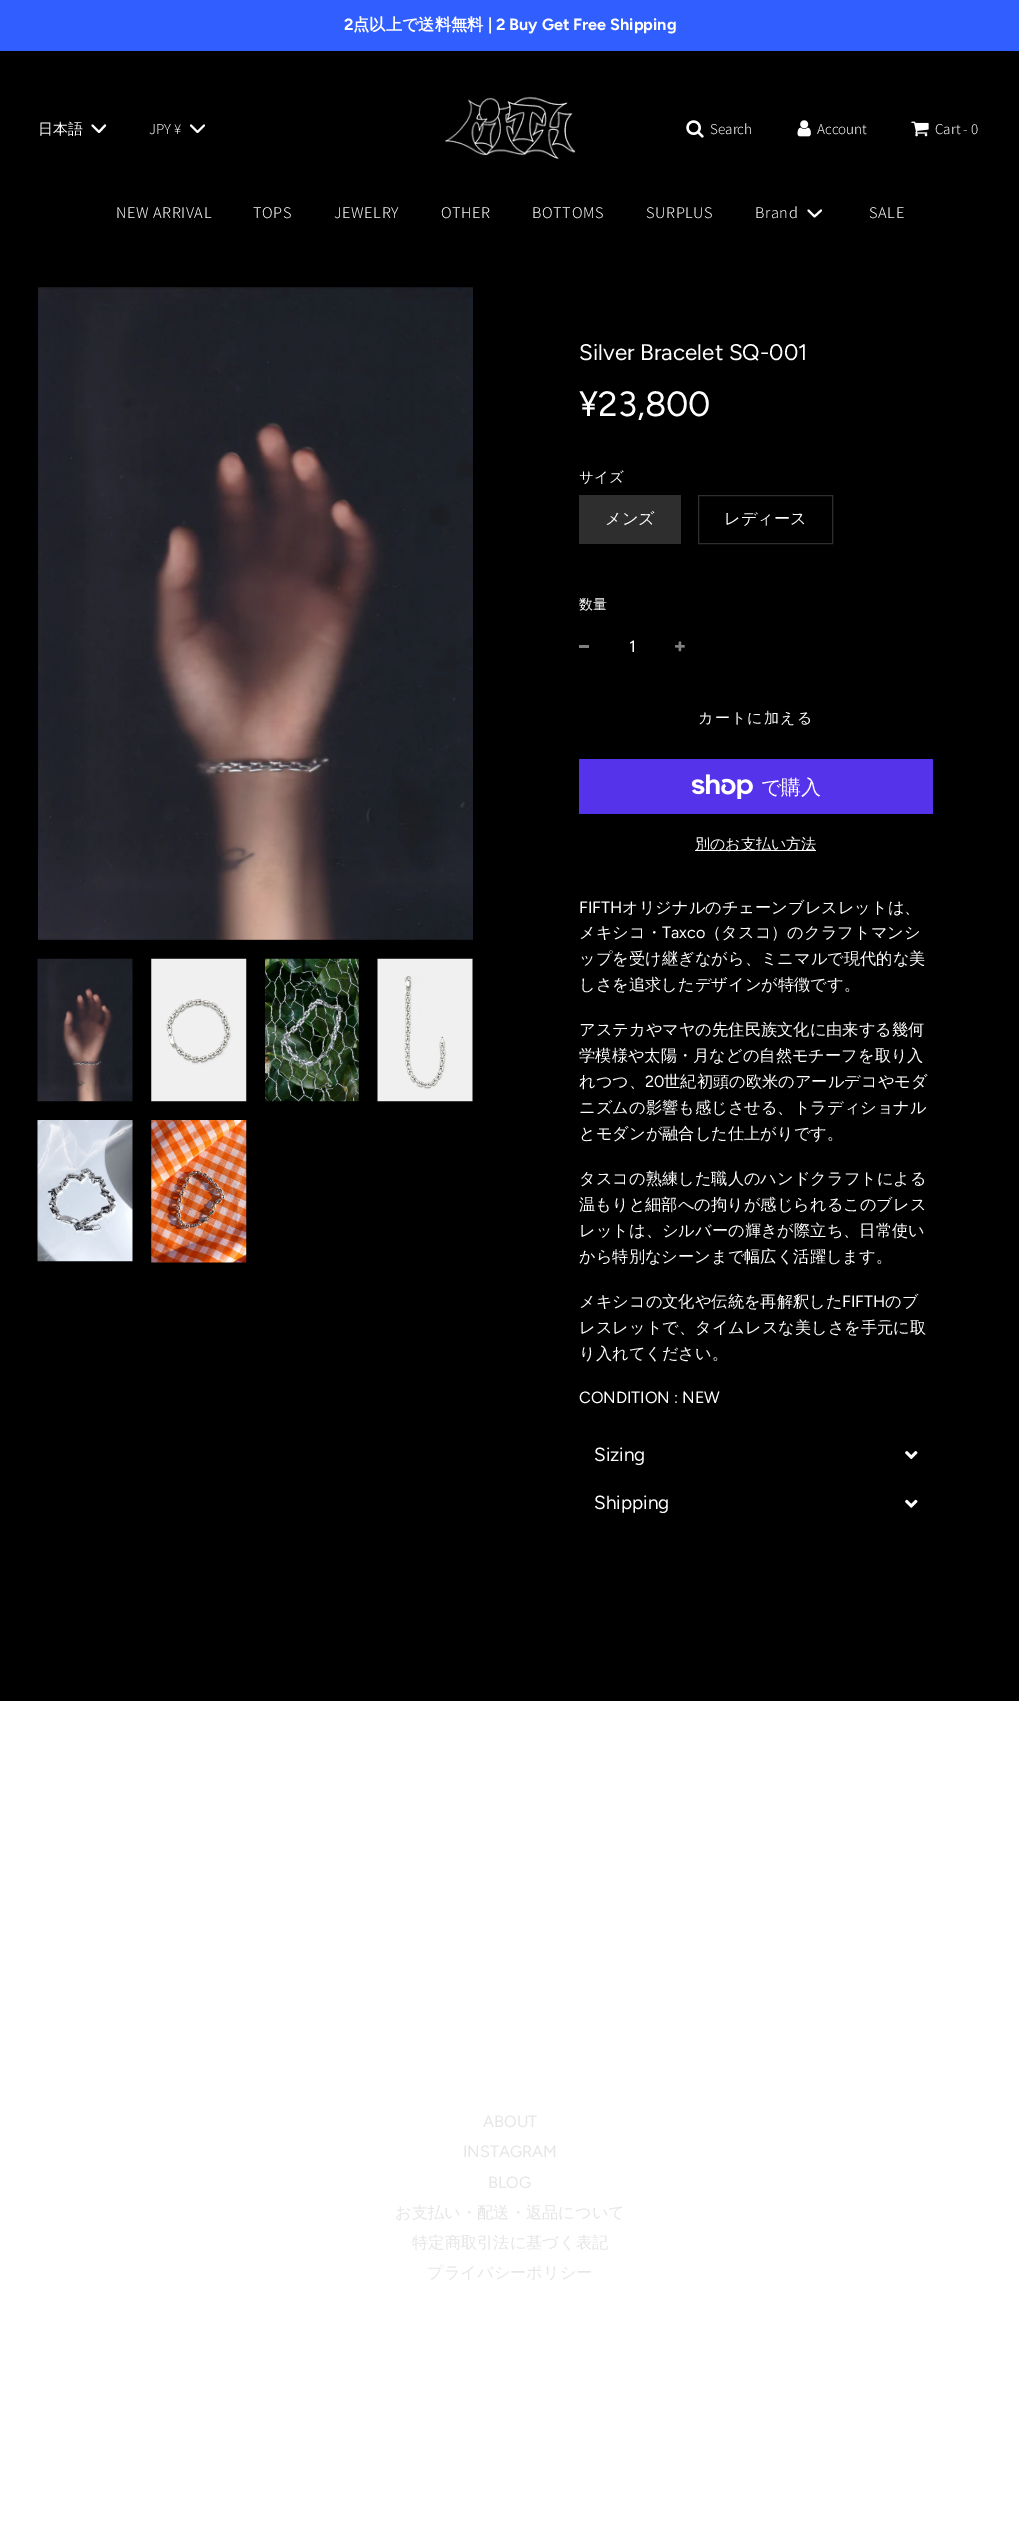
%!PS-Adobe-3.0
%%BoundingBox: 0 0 1019 2542
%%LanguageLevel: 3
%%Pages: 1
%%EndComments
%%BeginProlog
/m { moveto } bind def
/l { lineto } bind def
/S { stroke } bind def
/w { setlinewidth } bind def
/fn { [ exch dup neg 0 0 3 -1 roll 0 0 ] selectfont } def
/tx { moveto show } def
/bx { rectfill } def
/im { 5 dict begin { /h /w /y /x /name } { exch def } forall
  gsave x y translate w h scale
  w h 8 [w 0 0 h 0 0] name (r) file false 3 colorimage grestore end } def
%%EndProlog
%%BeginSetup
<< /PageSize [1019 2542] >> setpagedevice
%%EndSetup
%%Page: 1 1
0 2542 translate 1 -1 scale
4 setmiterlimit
1 setgray
0 0 1019 2542 bx
0 setgray
0 51 1019 1650 bx
0.192 0.369 1 setrgbcolor
0 0 1019 51 bx
/Figtree-Bold 16.25 fn
1 setgray
(2) 344 30 tx
/WenQuanYiZenHei-Bold 16.25 fn
(点以上で送料無料) 353 30 tx
/Figtree-Bold 16.25 fn
(| 2 Buy Get Free Shipping) 488 30 tx
/WenQuanYiZenHei-Medium 15 fn
(日本語) 38 134 tx
2.1 w
1 setlinecap
1 setlinejoin
92.5 125.5 m 99 132 l 105 125.5 l S
/Assistant-Light 15 fn
(JPY ¥) 149 134 tx
191 125.5 m 197.5 132 l 204 125.5 l S
(image0.raw) 445 96 131 63 im
(image1.raw) 686 120 18 18 im
(Search) 710 134 tx
(image2.raw) 797 120 14 17 im
(Account) 817 134 tx
(image3.raw) 911 121 18 16 im
(Cart - 0) 935 134 tx
/Assistant-Light 16.25 fn
116 218 m 0.6 0 (NEW ARRIVAL) ashow
253 218 m 0.6 0 (TOPS) ashow
334 218 m 0.6 0 (JEWELRY) ashow
441 218 m 0.6 0 (OTHER) ashow
532 218 m 0.6 0 (BOTTOMS) ashow
646 218 m 0.6 0 (SURPLUS) ashow
755 218 m 0.6 0 (Brand) ashow
2 w
808.5 210.5 m 814.5 216.5 l 821 210.5 l S
869 218 m 0.6 0 (SALE) ashow
(image4.raw) 38 287 435 653 im
(image5.raw) 37 958 96 144 im
(image6.raw) 151 958 96 144 im
(image7.raw) 265 958 94 144 im
(image8.raw) 377 958 96 144 im
(image9.raw) 37 1120 96 142 im
(image10.raw) 151 1120 96 143 im
/Figtree-Regular 22.5 fn
(Silver Bracelet SQ-001) 579 360 tx
/Figtree-Regular 35 fn
(¥23,800) 579 416 tx
/WenQuanYiZenHei-Medium 14.5 fn
(サイズ) 579 482 tx
0.18 setgray
579 495 102 49 bx
/WenQuanYiZenHei-Medium 16.25 fn
1 setgray
(メンズ) 605 524 tx
0.18 setgray
1 w
0 setlinecap
0 setlinejoin
698.5 495.5 134 48 rectstroke
1 setgray
(レディース) 724 524 tx
/WenQuanYiZenHei-Medium 14 fn
(数量) 579 609 tx
0.502 setgray
579 645 10 3 bx
/Figtree-Regular 16.25 fn
1 setgray
(1) 629 652 tx
(image11.raw) 675 641 10 11 im
/WenQuanYiZenHei-Medium 15 fn
698 723 m 1.25 0 (カートに加える) ashow
0.329 0.2 0.922 setrgbcolor
579 759 354 55 bx
(image12.raw) 691 774 62 25 im
/WenQuanYiZenHei-Medium 20 fn
1 setgray
(で購入) 761 794 tx
695 850 121 1 bx
/WenQuanYiZenHei-Medium 15 fn
(別のお支払い方法) 695 849 tx
/Figtree-Regular 16.25 fn
(FIFTH) 579 913 tx
/WenQuanYiZenHei-Medium 16.25 fn
(オリジナルのチェーンブレスレットは、) 622 913 tx
(メキシコ・) 579 938 tx
/Figtree-Regular 16.25 fn
(Taxco) 662 938 tx
/WenQuanYiZenHei-Medium 16.25 fn
(（タスコ）のクラフトマンシ) 705 938 tx
(ップを受け継ぎながら、ミニマルで現代的な美) 579 964 tx
(しさを追求したデザインが特徴です。) 579 990 tx
(アステカやマヤの先住民族文化に由来する幾何) 579 1035 tx
(学模様や太陽・月などの自然モチーフを取り入) 579 1061 tx
(れつつ、) 579 1087 tx
/Figtree-Regular 16.25 fn
(20) 645 1087 tx
/WenQuanYiZenHei-Medium 16.25 fn
(世紀初頭の欧米のアールデコやモダ) 664 1087 tx
(ニズムの影響も感じさせる、トラディショナル) 579 1113 tx
(とモダンが融合した仕上がりです。) 579 1139 tx
(タスコの熟練した職人のハンドクラフトによる) 579 1184 tx
(温もりと細部への拘りが感じられるこのブレス) 579 1210 tx
(レットは、シルバーの輝きが際立ち、日常使い) 579 1236 tx
(から特別なシーンまで幅広く活躍します。) 579 1262 tx
(メキシコの文化や伝統を再解釈した) 579 1307 tx
/Figtree-Regular 16.25 fn
(FIFTH) 842 1307 tx
/WenQuanYiZenHei-Medium 16.25 fn
(のブ) 885 1307 tx
(レスレットで、タイムレスな美しさを手元に取) 579 1333 tx
(り入れてください。) 579 1359 tx
/Figtree-Regular 16.25 fn
(CONDITION : NEW) 579 1403 tx
/Figtree-Regular 19 fn
(Sizing) 594 1461 tx
(image13.raw) 905 1451 13 8 im
(Shipping) 594 1509 tx
(image14.raw) 905 1499 13 9 im
/Figtree-Regular 16.25 fn
0.902 setgray
(ABOUT) 483 2127 tx
(INSTAGRAM) 463 2157 tx
(BLOG) 488 2188 tx
/WenQuanYiZenHei-Medium 16.25 fn
(お支払い・配送・返品について) 395 2218 tx
(特定商取引法に基づく表記) 412 2248 tx
(プライバシーポリシー) 427 2278 tx
showpage
%%EOF
